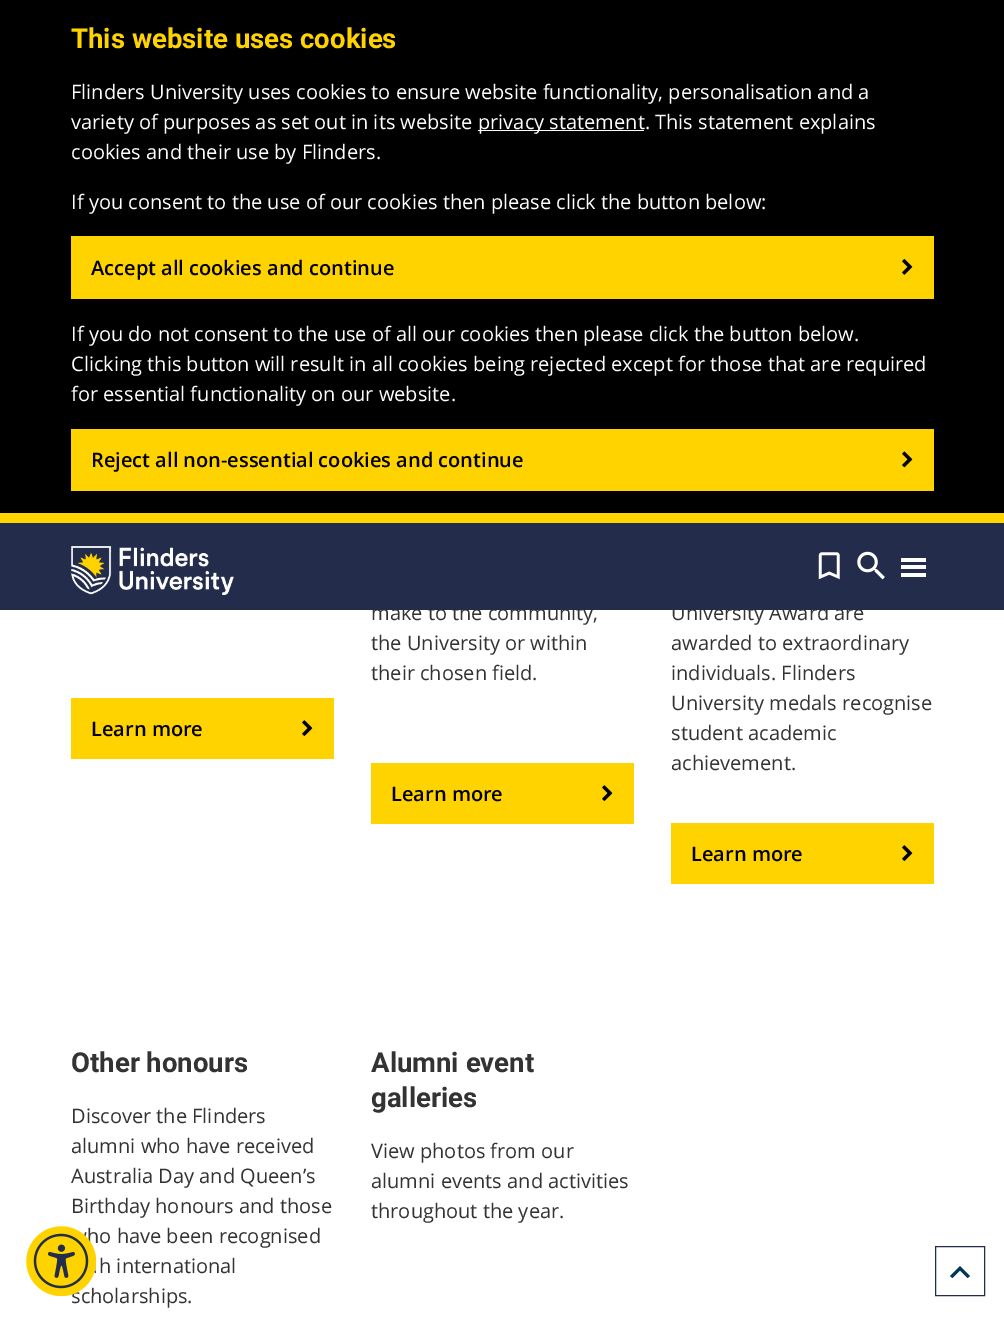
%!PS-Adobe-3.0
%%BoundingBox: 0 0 1004 1322
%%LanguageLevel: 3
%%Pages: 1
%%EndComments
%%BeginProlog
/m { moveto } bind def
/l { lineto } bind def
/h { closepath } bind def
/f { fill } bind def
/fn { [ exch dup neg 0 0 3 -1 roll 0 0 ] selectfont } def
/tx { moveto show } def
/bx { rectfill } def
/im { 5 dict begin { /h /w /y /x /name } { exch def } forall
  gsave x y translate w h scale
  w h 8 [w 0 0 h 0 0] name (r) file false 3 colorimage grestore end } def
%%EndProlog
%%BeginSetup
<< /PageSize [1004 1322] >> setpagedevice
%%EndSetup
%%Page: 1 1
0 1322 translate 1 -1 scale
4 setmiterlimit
1 setgray
0 0 1004 1322 bx
0 setgray
0 0 1004 513 bx
/Roboto-Bold 27.5 fn
1 0.827 0 setrgbcolor
(This website uses cookies) 71 48 tx
/OpenSans-Regular 20 fn
1 setgray
(Flinders University uses cookies to ensure website functionality, personalisation and a) 71 99 tx
(variety of purposes as set out in its website) 71 129 tx
478 130 166 1 bx
(privacy statement. This statement explains) 478 129 tx
(cookies and their use by Flinders.) 71 159 tx
(If you consent to the use of our cookies then please click the button below:) 71 209 tx
1 0.827 0 setrgbcolor
71 236 863 63 bx
/OpenSans-SemiBold 20 fn
0 setgray
(Accept all cookies and continue) 91 275 tx
(image0.raw) 902 259 11 16 im
/OpenSans-Regular 20 fn
1 setgray
(If you do not consent to the use of all our cookies then please click the button below.) 71 341 tx
(Clicking this button will result in all cookies being rejected except for those that are required) 71 371 tx
(for essential functionality on our website.) 71 401 tx
1 0.827 0 setrgbcolor
71 429 863 62 bx
/OpenSans-SemiBold 20 fn
0 setgray
(Reject all non-essential cookies and continue) 91 467 tx
(image1.raw) 902 451 11 17 im
1 0.827 0 setrgbcolor
0 513 1004 10 bx
/OpenSans-Regular 20 fn
0.2 setgray
(ho have been recognised) 87 1243 tx
(scholarships.) 71 1303 tx
(image2.raw) 26 1226 70 70 im
(make to the community,) 371 620 tx
(University Award are) 671 620 tx
0.137 0.176 0.294 setrgbcolor
0 523 1004 87 bx
(image3.raw) 71 546 163 49 im
(image4.raw) 818 552 22 28 im
(image5.raw) 857 551 28 29 im
1 setgray
901 558 25 4 bx
901 565 25 4 bx
901 573 25 4 bx
1 0.827 0 setrgbcolor
71 698 263 61 bx
/OpenSans-SemiBold 20 fn
0 setgray
(Learn more) 91 736 tx
(image6.raw) 302 720 11 16 im
/OpenSans-Regular 20 fn
0.2 setgray
(the University or within) 371 650 tx
(their chosen field.) 371 680 tx
1 0.827 0 setrgbcolor
371 763 263 61 bx
/OpenSans-SemiBold 20 fn
0 setgray
(Learn more) 391 801 tx
(image6.raw) 602 785 11 16 im
/OpenSans-Regular 20 fn
0.2 setgray
(awarded to extraordinary) 671 650 tx
(individuals. Flinders) 671 680 tx
(University medals recognise) 671 710 tx
(student academic) 671 740 tx
(achievement.) 671 770 tx
1 0.827 0 setrgbcolor
671 823 263 61 bx
/OpenSans-SemiBold 20 fn
0 setgray
(Learn more) 691 861 tx
(image6.raw) 902 845 11 16 im
/Roboto-Bold 27.5 fn
0.2 setgray
(Other honours) 71 1072 tx
/OpenSans-Regular 20 fn
(Discover the Flinders) 71 1123 tx
(alumni who have received) 71 1153 tx
(Australia Day and Queen’s) 71 1183 tx
(Birthday honours and those) 71 1213 tx
(h international) 99 1273 tx
/Roboto-Bold 27.5 fn
(Alumni event) 371 1072 tx
(galleries) 371 1107 tx
/OpenSans-Regular 20 fn
(View photos from our) 371 1158 tx
(alumni events and activities) 371 1188 tx
(throughout the year.) 371 1218 tx
0.137 0.176 0.294 setrgbcolor
935.5 1246.5 49 49 rectstroke
0.004 0.208 0.329 setrgbcolor
952.5 1278 m 950 1276 l 960 1266 l 970 1276 l 967.5 1278 l 960 1270.5 l h f
showpage
%%EOF
